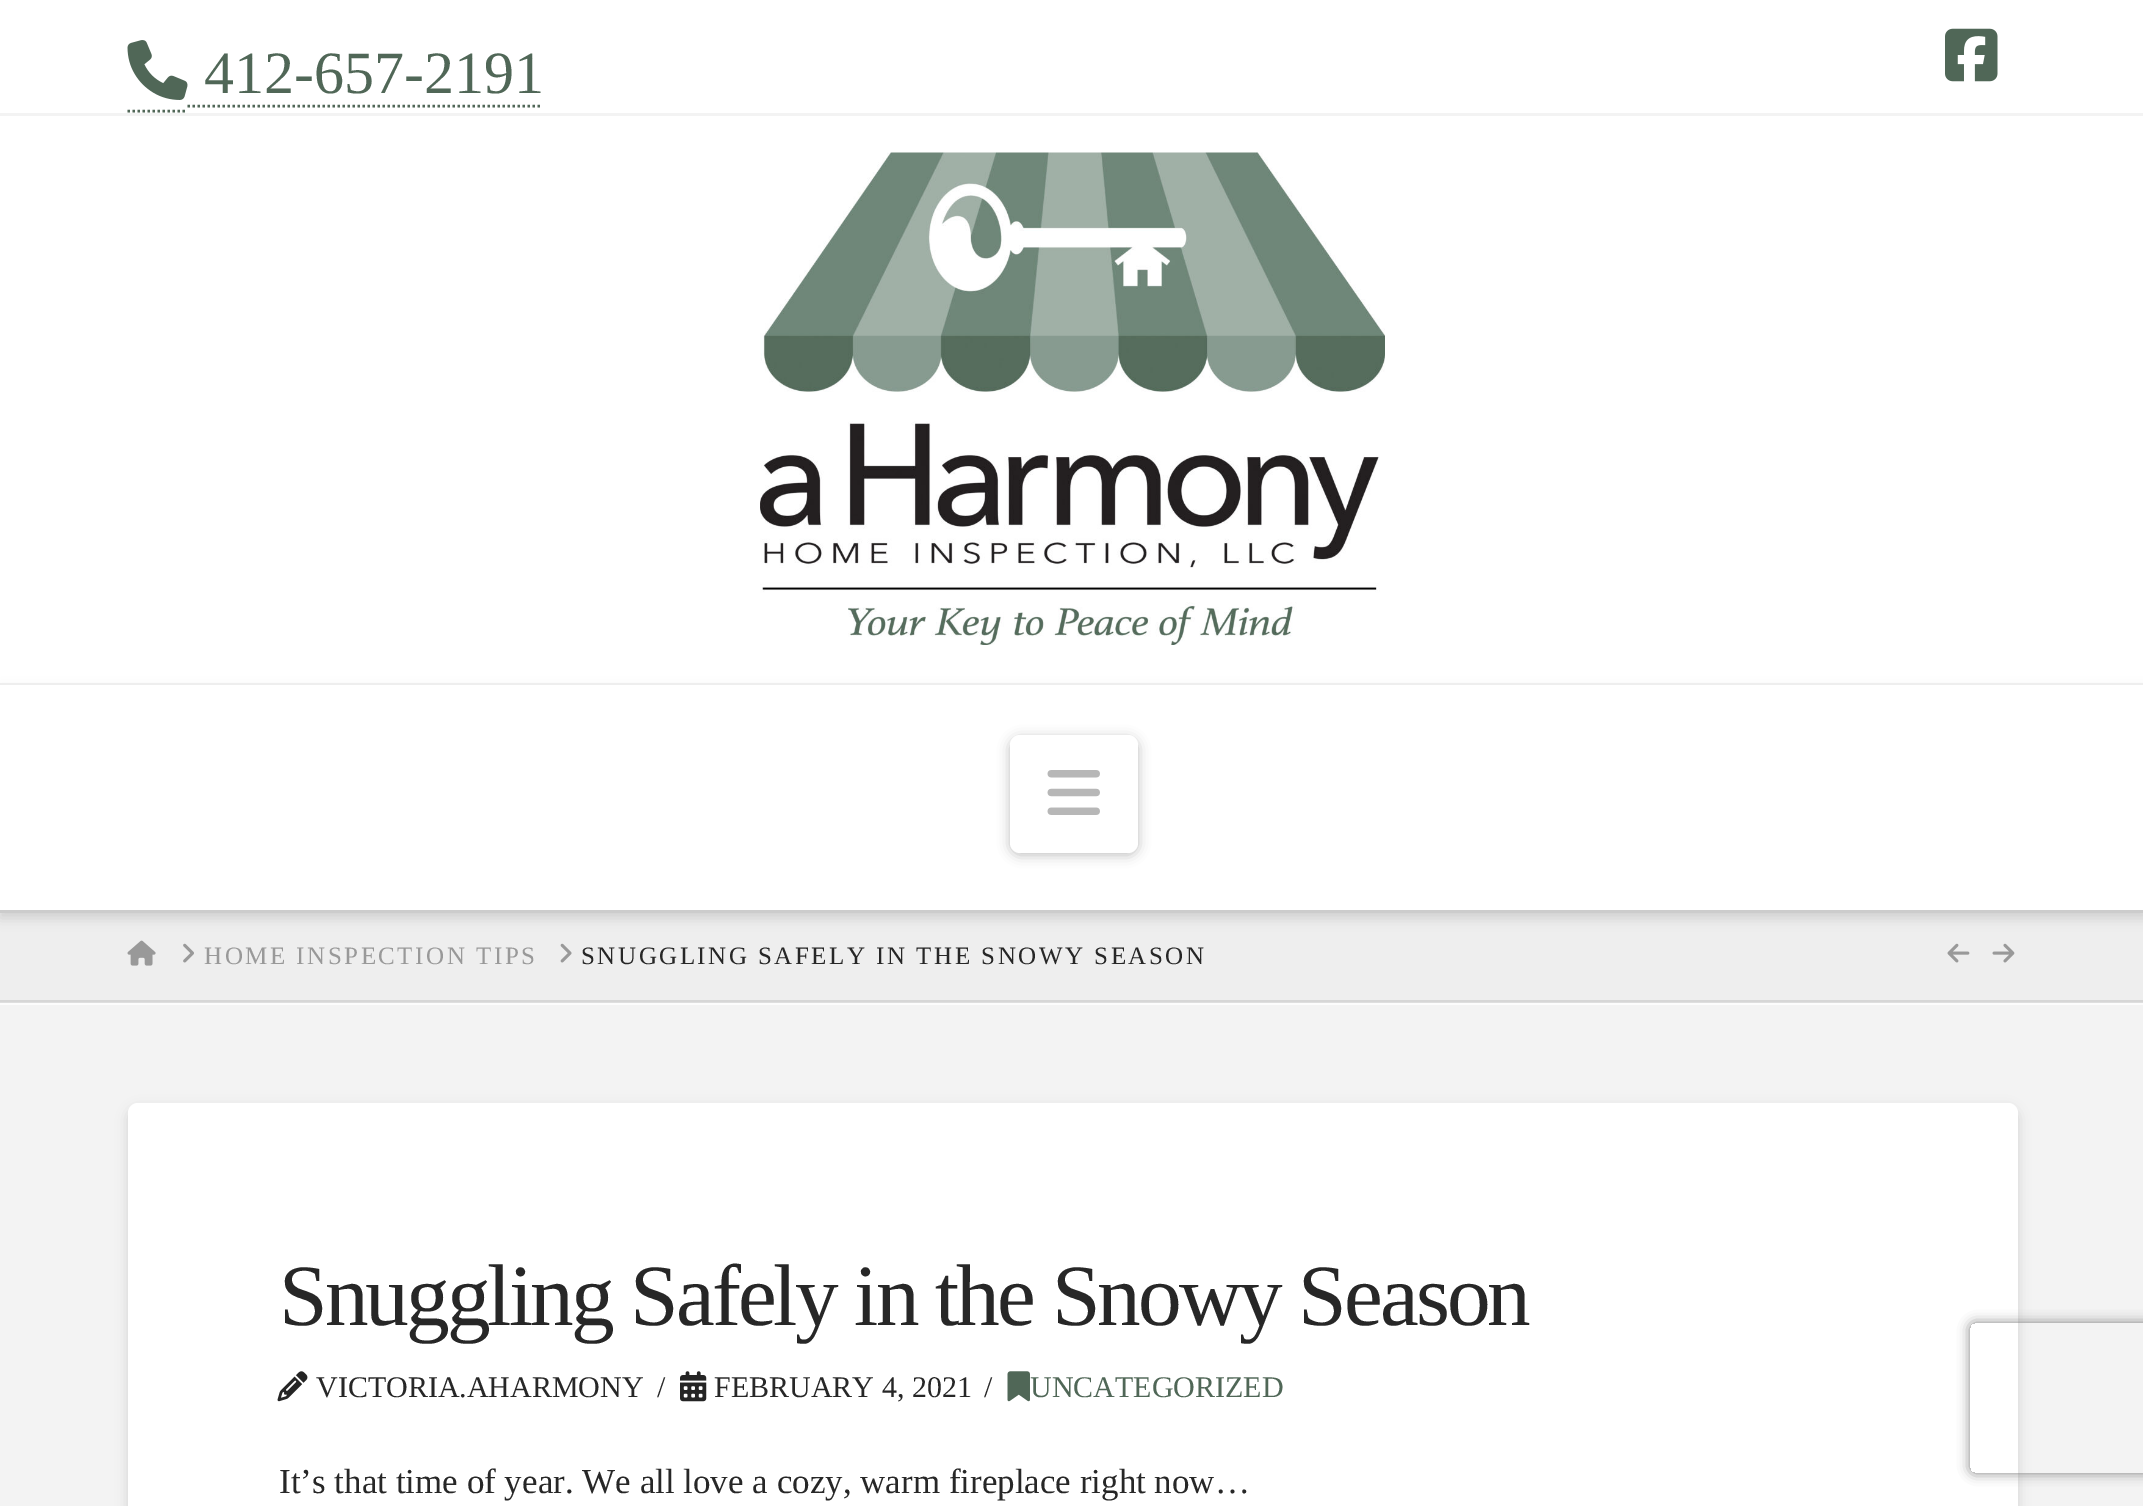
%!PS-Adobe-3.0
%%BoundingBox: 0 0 2143 1506
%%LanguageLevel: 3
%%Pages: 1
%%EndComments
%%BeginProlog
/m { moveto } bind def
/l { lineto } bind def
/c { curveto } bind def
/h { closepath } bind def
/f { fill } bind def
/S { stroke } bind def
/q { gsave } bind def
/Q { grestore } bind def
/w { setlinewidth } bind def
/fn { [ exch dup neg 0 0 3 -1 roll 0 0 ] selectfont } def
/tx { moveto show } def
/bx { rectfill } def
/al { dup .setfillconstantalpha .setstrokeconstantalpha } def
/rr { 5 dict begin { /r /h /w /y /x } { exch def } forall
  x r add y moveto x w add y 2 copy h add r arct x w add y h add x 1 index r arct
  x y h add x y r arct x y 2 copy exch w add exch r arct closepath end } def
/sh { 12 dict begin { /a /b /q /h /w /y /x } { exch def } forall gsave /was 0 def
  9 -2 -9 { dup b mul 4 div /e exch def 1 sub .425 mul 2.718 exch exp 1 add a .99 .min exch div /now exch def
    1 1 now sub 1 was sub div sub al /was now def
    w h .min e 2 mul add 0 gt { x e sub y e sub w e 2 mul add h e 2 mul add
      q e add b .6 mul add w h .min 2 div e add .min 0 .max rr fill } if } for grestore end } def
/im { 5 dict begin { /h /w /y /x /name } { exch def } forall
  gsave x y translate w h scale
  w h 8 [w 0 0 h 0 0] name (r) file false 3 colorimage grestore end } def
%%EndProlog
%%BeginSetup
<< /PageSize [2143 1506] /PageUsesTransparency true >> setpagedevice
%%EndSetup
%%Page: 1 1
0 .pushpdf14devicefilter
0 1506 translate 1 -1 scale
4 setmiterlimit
0.953 setgray
0 0 2143 1506 bx
0.933 setgray
0 913 2143 87 bx
0.839 setgray
0 1000 2143 2 bx
1 setgray
0 0 2143 113 bx
0.314 0.404 0.341 setrgbcolor
2.5 w
[2.5 2.5] 0 setdash
127.5 111 m 187.5 111 l S
187.5 106 m 542.5 106 l S
(image0.raw) 127 40 61 60 im
/LiberationSerif-Regular 60 fn
(412-657-2191) 204 93 tx
(image1.raw) 1945 28 53 54 im
1 setgray
0 116 2143 567 bx
(image2.raw) 760 152 625 493 im
0 setgray
0 690 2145 228 0 6 0.13 sh
1 setgray
0 685 2143 225 bx
0.8 setgray
0 910 2143 3 bx
0 setgray
1010 738 128 117 10 6 0.25 sh
1 setgray
1010 735 128 118 10 rr f
(image3.raw) 1047 770 53 45 im
0.988 setgray
0 1003 2143 2 bx
0.871 setgray
0 1002 2143 1 bx
(image4.raw) 127 940 29 26 im
(image5.raw) 183 943 11 20 im
/LiberationSerif-Regular 25 fn
0.6 setgray
204 964 m 2.5 0 (HOME INSPECTION TIPS) ashow
(image6.raw) 560 943 12 20 im
0.153 setgray
581 964 m 2.5 0 (SNUGGLING SAFELY IN THE SNOWY SEASON) ashow
(image7.raw) 1947 943 23 20 im
(image8.raw) 1992 943 23 20 im
0 setgray
128 1108 1890 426 10 6 0.13 sh
1 setgray
128 1103 1890 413 10 rr f
/LiberationSerif-Regular 87.5 fn
0.153 setgray
279 1325 m -3.05 0 (Snuggling Safely in the Snowy Season) ashow
(image9.raw) 277 1371 31 31 im
/LiberationSerif-Regular 30 fn
(VICTORIA.AHARMONY) 316 1397 tx
(/) 657 1397 tx
(image10.raw) 680 1371 27 31 im
(FEBRUARY 4, 2021) 714 1397 tx
(/) 984 1397 tx
(image11.raw) 1007 1371 23 31 im
0.314 0.404 0.341 setrgbcolor
(UNCATEGORIZED) 1030 1397 tx
/LiberationSerif-Regular 35 fn
0.153 setgray
(It’s that time of year. We all love a cozy, warm fireplace right now…) 279 1493 tx
q
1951 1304 m 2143 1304 l 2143 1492 l 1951 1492 l h 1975 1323 m 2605 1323 l 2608 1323 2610 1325 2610 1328 c 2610 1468 l 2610 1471 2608 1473 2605 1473 c 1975 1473 l 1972 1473 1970 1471 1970 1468 c 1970 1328 l 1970 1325 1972 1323 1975 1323 c h eoclip newpath
0.502 setgray
1970 1323 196 150 5 6 1 sh
Q
.poppdf14devicefilter showpage
%%EOF
